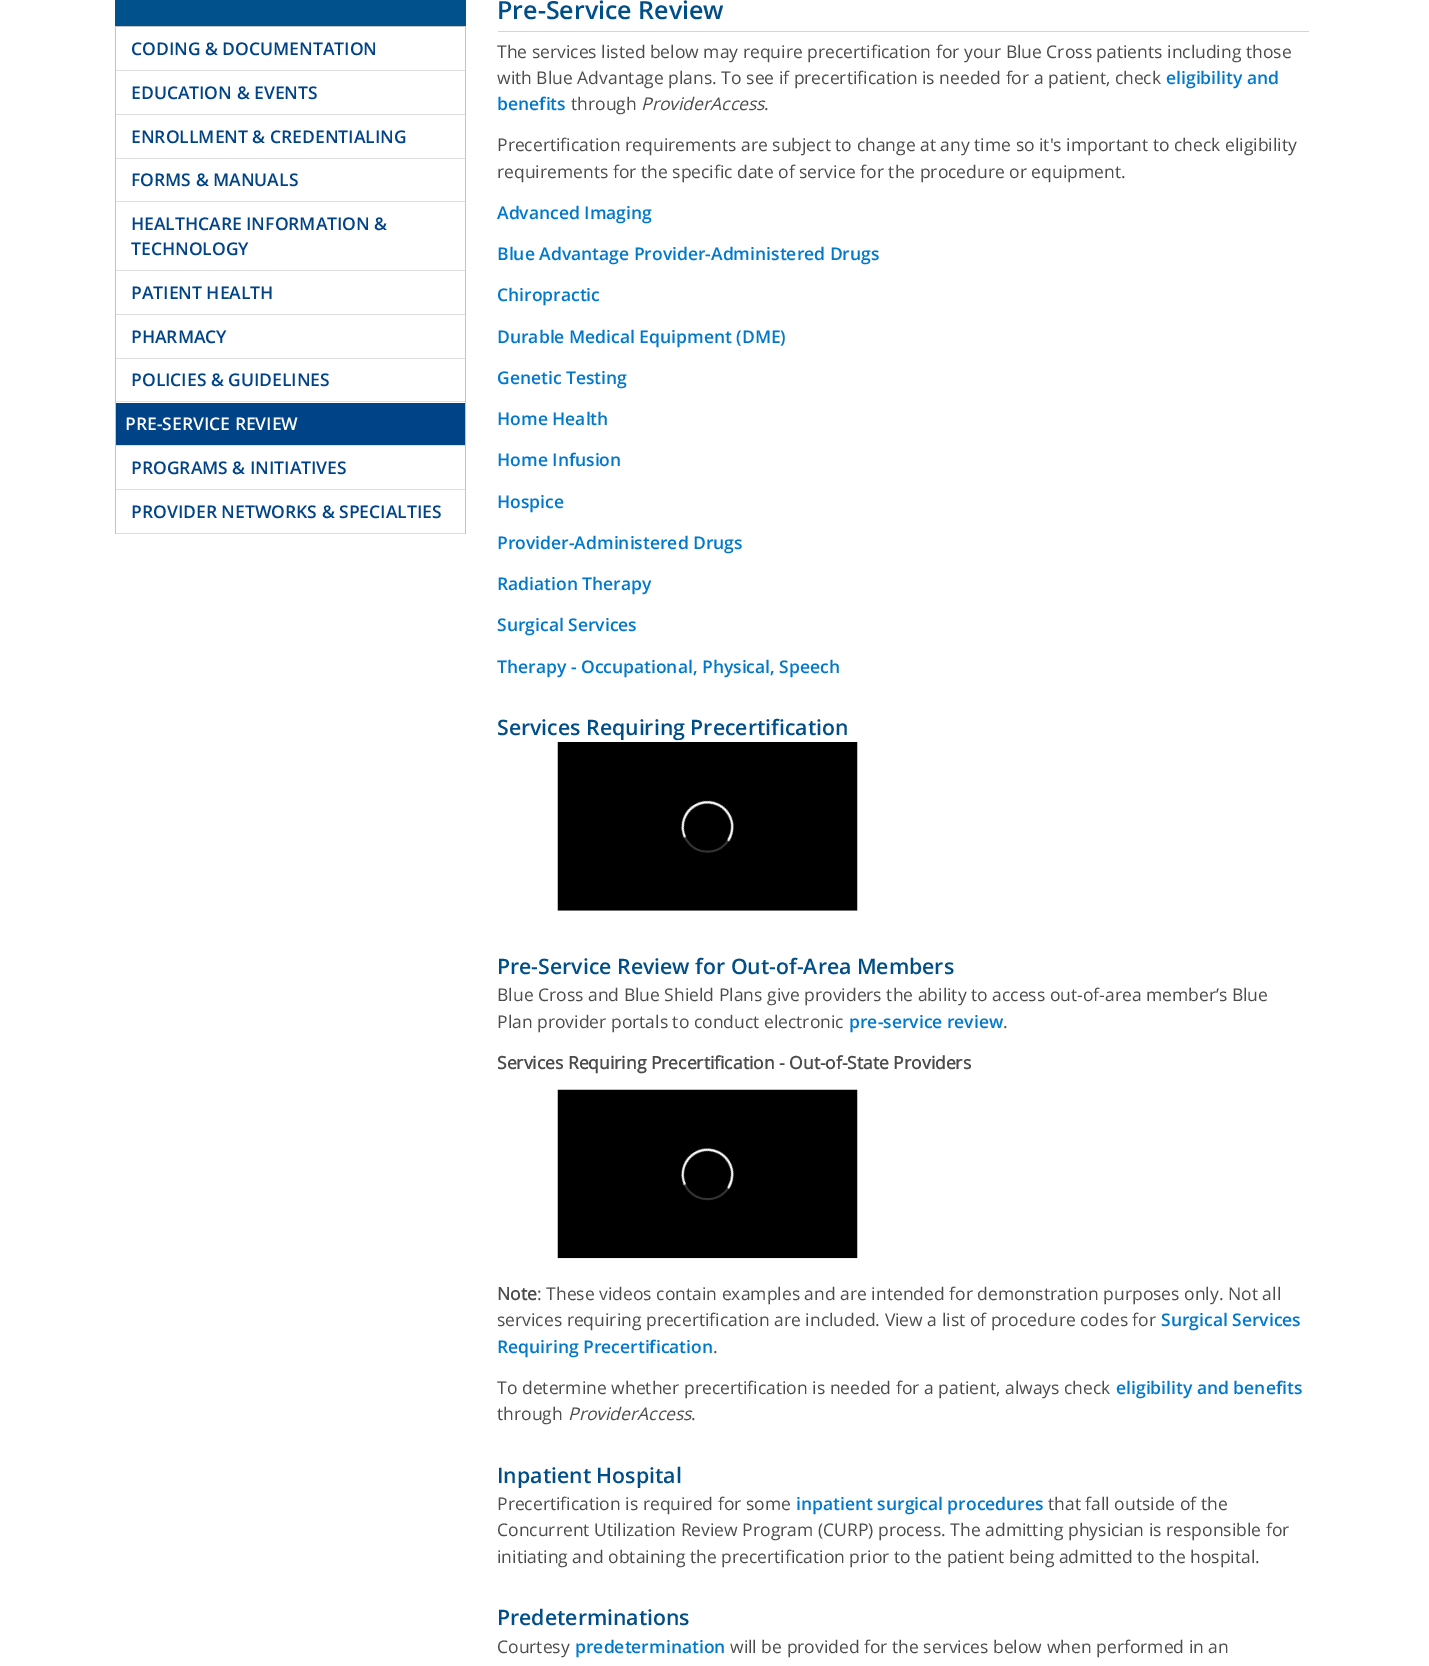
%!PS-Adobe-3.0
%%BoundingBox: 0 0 1429 1666
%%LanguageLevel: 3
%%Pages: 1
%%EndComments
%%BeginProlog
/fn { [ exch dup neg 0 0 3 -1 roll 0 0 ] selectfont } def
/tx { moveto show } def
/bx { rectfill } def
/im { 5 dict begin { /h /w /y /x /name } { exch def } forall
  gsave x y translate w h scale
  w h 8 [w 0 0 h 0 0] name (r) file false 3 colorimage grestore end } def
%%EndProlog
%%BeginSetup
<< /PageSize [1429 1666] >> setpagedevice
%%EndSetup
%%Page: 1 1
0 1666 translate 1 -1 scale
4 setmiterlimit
1 setgray
0 0 1429 1666 bx
0.004 0.318 0.549 setrgbcolor
115 0 351 26 bx
0.761 0.765 0.761 setrgbcolor
115 26 351 1 bx
465 26 1 508 bx
115 26 1 508 bx
0.859 0.875 0.886 setrgbcolor
116 70 349 1 bx
/OpenSans-SemiBold 17.5 fn
0 0.263 0.529 setrgbcolor
(CODING & DOCUMENTATION) 131 55 tx
0.859 0.875 0.886 setrgbcolor
116 114 349 1 bx
0 0.263 0.529 setrgbcolor
(EDUCATION & EVENTS) 131 99 tx
0.859 0.875 0.886 setrgbcolor
116 158 349 1 bx
0 0.263 0.529 setrgbcolor
(ENROLLMENT & CREDENTIALING) 131 143 tx
0.859 0.875 0.886 setrgbcolor
116 201 349 1 bx
0 0.263 0.529 setrgbcolor
(FORMS & MANUALS) 131 186 tx
0.859 0.875 0.886 setrgbcolor
116 270 349 1 bx
0 0.263 0.529 setrgbcolor
(HEALTHCARE INFORMATION &) 131 230 tx
(TECHNOLOGY) 131 255 tx
0.859 0.875 0.886 setrgbcolor
116 314 349 1 bx
0 0.263 0.529 setrgbcolor
(PATIENT HEALTH) 131 299 tx
0.859 0.875 0.886 setrgbcolor
116 358 349 1 bx
0 0.263 0.529 setrgbcolor
(PHARMACY) 131 343 tx
0.859 0.875 0.886 setrgbcolor
116 401 349 1 bx
0 0.263 0.529 setrgbcolor
(POLICIES & GUIDELINES) 131 386 tx
0.859 0.875 0.886 setrgbcolor
116 445 349 1 bx
0 0.263 0.529 setrgbcolor
116 403 349 42 bx
1 setgray
(PRE-SERVICE REVIEW) 125 430 tx
0.859 0.875 0.886 setrgbcolor
116 489 349 1 bx
0 0.263 0.529 setrgbcolor
(PROGRAMS & INITIATIVES) 131 474 tx
0.859 0.875 0.886 setrgbcolor
116 533 349 1 bx
0 0.263 0.529 setrgbcolor
(PROVIDER NETWORKS & SPECIALTIES) 131 518 tx
0.831 setgray
498 31 811 1 bx
/OpenSans-SemiBold 25 fn
0 0.306 0.529 setrgbcolor
(Pre-Service Review) 497 19 tx
/OpenSans-Regular 17.5 fn
0.298 setgray
(The services listed below may require precertification for your Blue Cross patients including those) 497 58 tx
(with Blue Advantage plans. To see if precertification is needed for a patient, check) 497 84 tx
/OpenSans-SemiBold 17.5 fn
0 0.471 0.8 setrgbcolor
(eligibility and) 1166 84 tx
(benefits) 497 110 tx
/OpenSans-Regular 17.5 fn
0.298 setgray
(through) 571 110 tx
/OpenSans-Italic 17.5 fn
(ProviderAccess) 641 110 tx
/OpenSans-Regular 17.5 fn
(.) 764 110 tx
(Precertification requirements are subject to change at any time so it's important to check eligibility) 497 151 tx
(requirements for the specific date of service for the procedure or equipment.) 497 178 tx
/OpenSans-SemiBold 17.5 fn
0 0.471 0.8 setrgbcolor
(Advanced Imaging) 497 219 tx
(Blue Advantage Provider-Administered Drugs) 497 260 tx
(Chiropractic) 497 301 tx
(Durable Medical Equipment \(DME\)) 497 343 tx
(Genetic Testing) 497 384 tx
(Home Health) 497 425 tx
(Home Infusion) 497 466 tx
(Hospice) 497 508 tx
(Provider-Administered Drugs) 497 549 tx
(Radiation Therapy) 497 590 tx
(Surgical Services) 497 631 tx
(Therapy - Occupational, Physical, Speech) 497 673 tx
/OpenSans-SemiBold 21.25 fn
0 0.306 0.529 setrgbcolor
(Services Requiring Precertification) 497 735 tx
(image0.raw) 557 742 301 169 im
(Pre-Service Review for Out-of-Area Members) 497 974 tx
/OpenSans-Regular 17.5 fn
0.298 setgray
(Blue Cross and Blue Shield Plans give providers the ability to access out-of-area member’s Blue) 497 1001 tx
(Plan provider portals to conduct electronic) 497 1028 tx
/OpenSans-SemiBold 17.5 fn
0 0.471 0.8 setrgbcolor
(pre-service review) 849 1028 tx
/OpenSans-Regular 17.5 fn
0.298 setgray
(.) 1003 1028 tx
/OpenSans-Bold 17.5 fn
(Services Requiring Precertification - Out-of-State Providers) 497 1069 tx
(image1.raw) 557 1089 301 170 im
(Note) 497 1300 tx
/OpenSans-Regular 17.5 fn
(: These videos contain examples and are intended for demonstration purposes only. Not all) 537 1300 tx
(services requiring precertification are included. View a list of procedure codes for) 497 1326 tx
/OpenSans-SemiBold 17.5 fn
0 0.471 0.8 setrgbcolor
(Surgical Services) 1161 1326 tx
(Requiring Precertification) 497 1353 tx
/OpenSans-Regular 17.5 fn
0.298 setgray
(.) 713 1353 tx
(To determine whether precertification is needed for a patient, always check) 497 1394 tx
/OpenSans-SemiBold 17.5 fn
0 0.471 0.8 setrgbcolor
(eligibility and benefits) 1116 1394 tx
/OpenSans-Regular 17.5 fn
0.298 setgray
(through) 497 1420 tx
/OpenSans-Italic 17.5 fn
(ProviderAccess) 568 1420 tx
/OpenSans-Regular 17.5 fn
(.) 691 1420 tx
/OpenSans-SemiBold 21.25 fn
0 0.306 0.529 setrgbcolor
(Inpatient Hospital) 497 1483 tx
/OpenSans-Regular 17.5 fn
0.298 setgray
(Precertification is required for some) 497 1510 tx
/OpenSans-SemiBold 17.5 fn
0 0.471 0.8 setrgbcolor
(inpatient surgical procedures) 796 1510 tx
/OpenSans-Regular 17.5 fn
0.298 setgray
(that fall outside of the) 1048 1510 tx
(Concurrent Utilization Review Program \(CURP\) process. The admitting physician is responsible for) 497 1536 tx
(initiating and obtaining the precertification prior to the patient being admitted to the hospital.) 497 1563 tx
/OpenSans-SemiBold 21.25 fn
0 0.306 0.529 setrgbcolor
(Predeterminations) 497 1625 tx
/OpenSans-Regular 17.5 fn
0.298 setgray
(Courtesy) 497 1653 tx
/OpenSans-SemiBold 17.5 fn
0 0.471 0.8 setrgbcolor
(predetermination) 575 1653 tx
/OpenSans-Regular 17.5 fn
0.298 setgray
(will be provided for the services below when performed in an) 730 1653 tx
showpage
%%EOF
